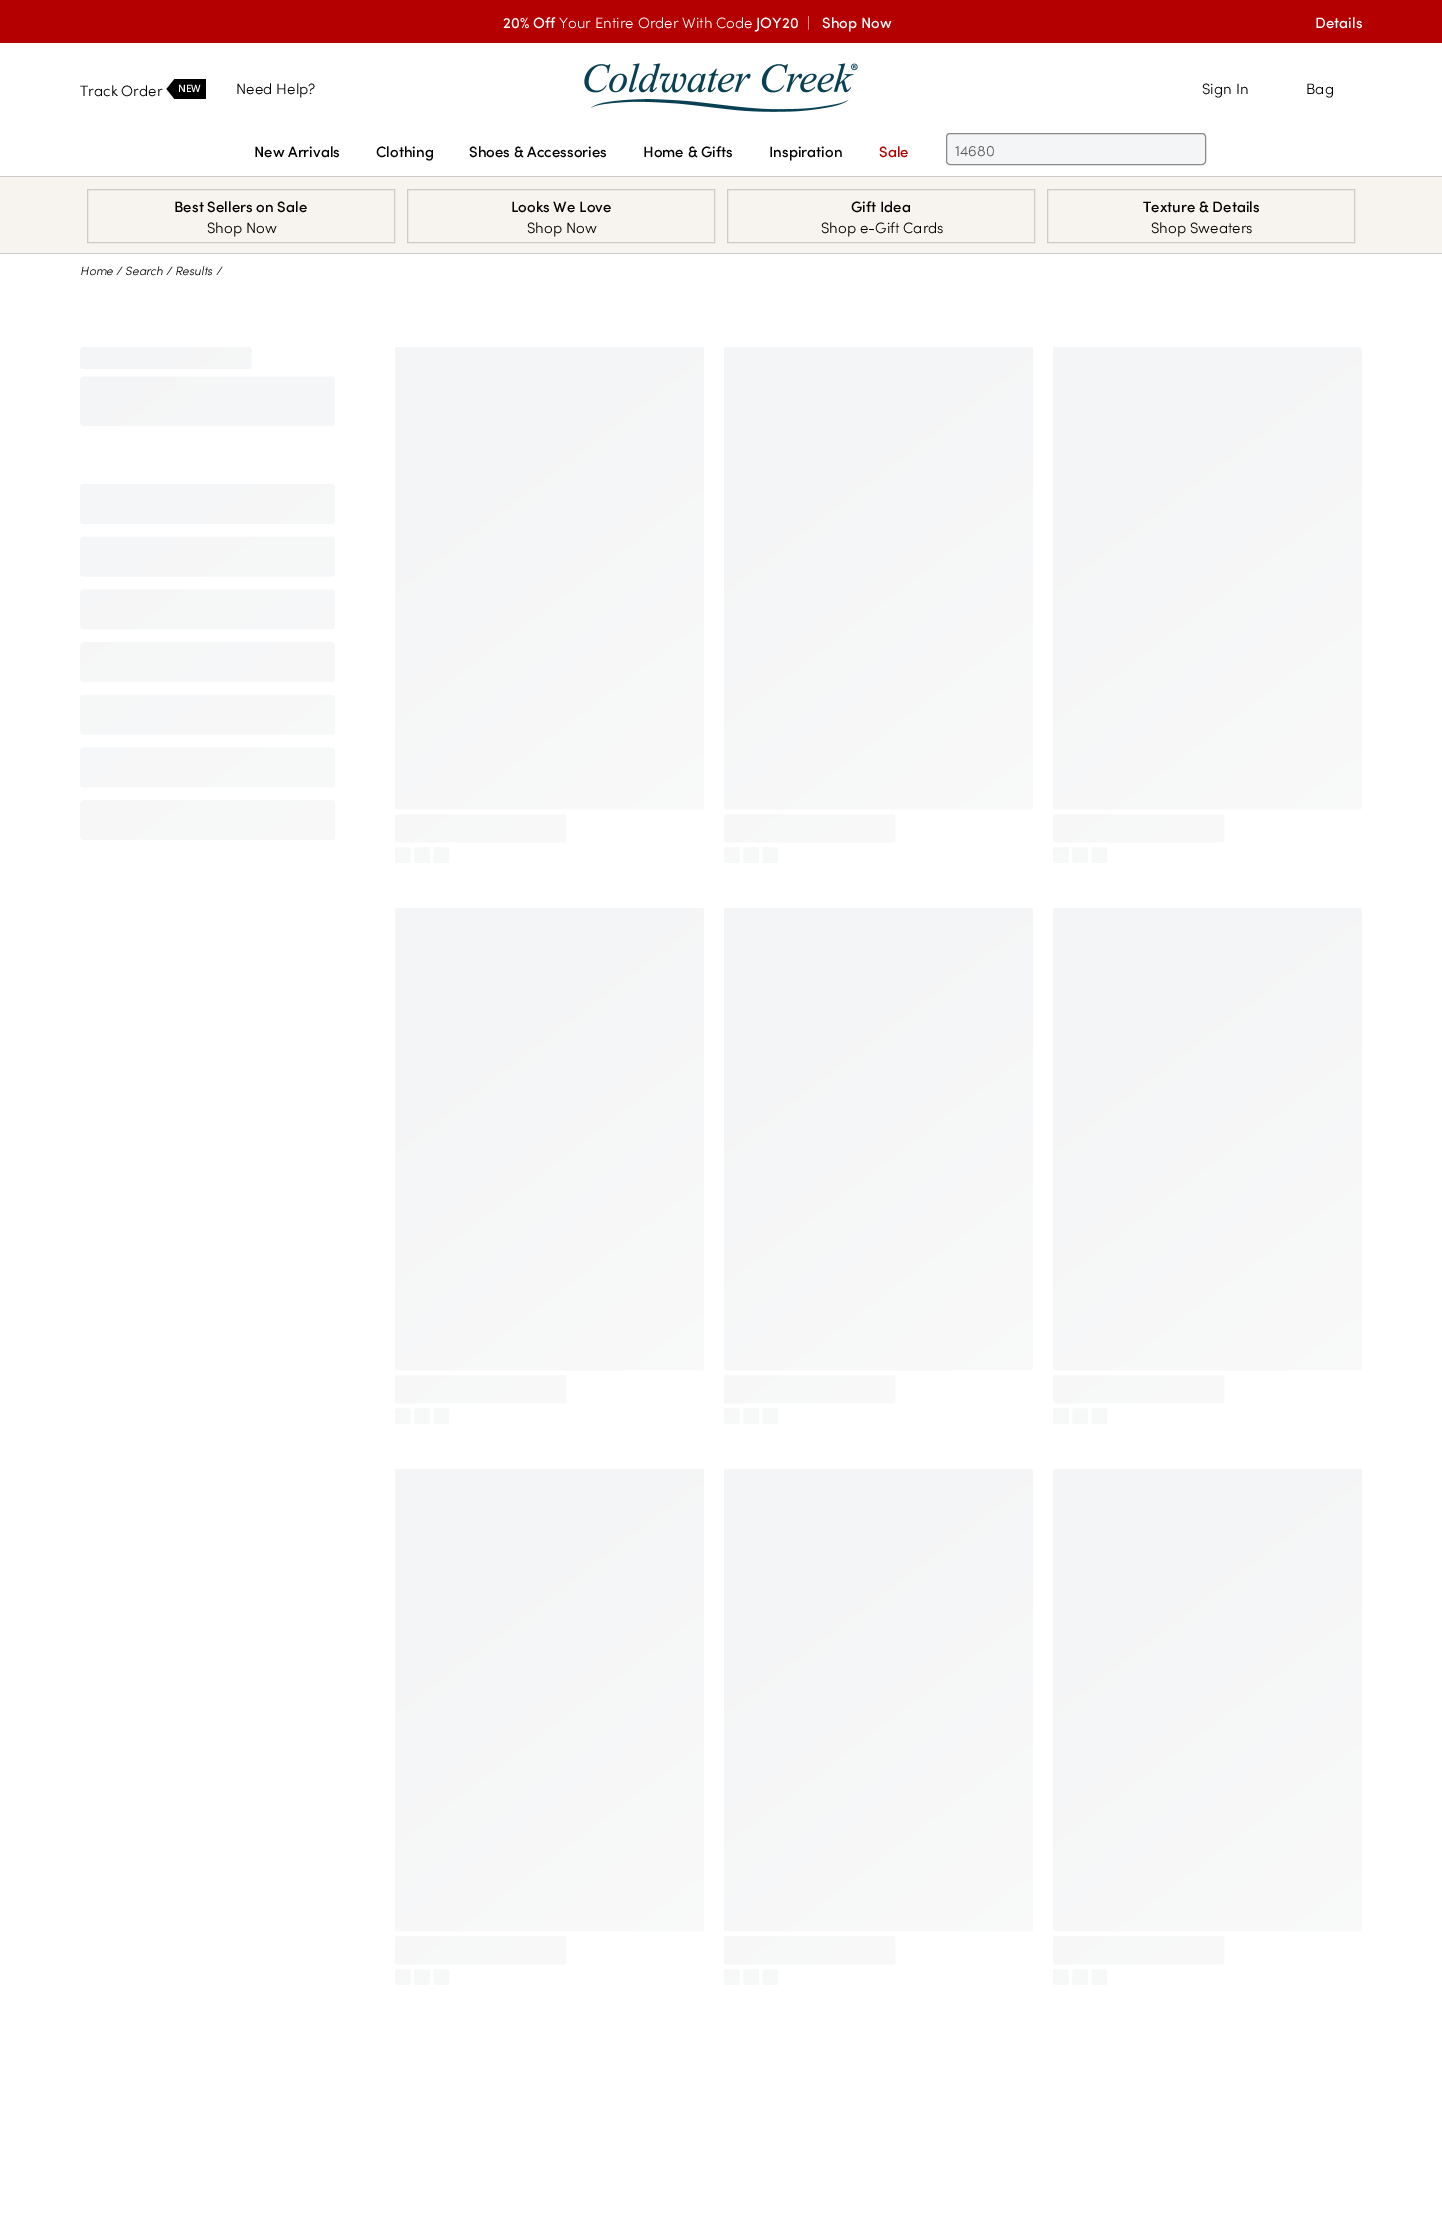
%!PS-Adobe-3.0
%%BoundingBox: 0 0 1442 2222
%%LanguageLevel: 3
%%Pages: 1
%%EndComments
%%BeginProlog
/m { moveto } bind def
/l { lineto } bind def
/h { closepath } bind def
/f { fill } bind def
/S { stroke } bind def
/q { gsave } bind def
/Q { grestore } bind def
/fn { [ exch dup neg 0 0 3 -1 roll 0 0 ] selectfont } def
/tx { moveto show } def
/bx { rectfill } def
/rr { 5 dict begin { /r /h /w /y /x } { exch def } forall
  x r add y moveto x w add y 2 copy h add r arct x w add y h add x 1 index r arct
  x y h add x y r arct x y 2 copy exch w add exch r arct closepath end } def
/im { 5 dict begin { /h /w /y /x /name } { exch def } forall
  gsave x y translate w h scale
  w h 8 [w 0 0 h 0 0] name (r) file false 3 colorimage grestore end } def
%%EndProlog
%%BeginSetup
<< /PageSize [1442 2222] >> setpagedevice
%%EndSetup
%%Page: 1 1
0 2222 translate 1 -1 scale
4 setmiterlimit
1 setgray
0 0 1442 2222 bx
0.706 0 0 setrgbcolor
0 0 1442 43 bx
/Sofia-Medium 15 fn
1 setgray
(20% Off) 503 28 tx
/Sofia-Light 15 fn
(Your Entire Order With Code) 559 28 tx
/Sofia-Medium 15 fn
(JOY20) 756 28 tx
/Sofia-Light 15 fn
(|) 807 28 tx
/Sofia-Medium 15 fn
(Shop Now) 822 28 tx
(Details) 1315 28 tx
0.8 setgray
0 176 1442 1 bx
/Sofia-Light 15 fn
0 setgray
(Track Order) 80 96 tx
166.5 89 m 174.5 99 l 206 99 l 206 79 l 174.5 79 l h f
/OpenSans-SemiBold 10 fn
1 setgray
(NEW) 178 92 tx
/Sofia-Light 15 fn
0 setgray
(Need Help?) 236 94 tx
(image0.raw) 584 63 274 49 im
(Sign In) 1202 94 tx
(Bag) 1306 94 tx
/Sofia-Medium 15 fn
(New Arrivals) 254 157 tx
(Clothing) 376 157 tx
(Shoes & Accessories) 469 157 tx
(Home & Gifts) 643 157 tx
(Inspiration) 769 157 tx
0.706 0 0 setrgbcolor
(Sale) 879 157 tx
0.957 0.961 0.965 setrgbcolor
946.5 133.5 259 31 3.5 rr q f Q
0.541 setgray
S
/Sofia-Light 15 fn
0.353 setgray
(14680) 955 156 tx
0.8 setgray
0 253 1442 1 bx
0.969 0.953 0.933 setrgbcolor
0 177 1442 76 bx
0.8 setgray
87.5 189.5 307 53 rectstroke
/Sofia-Medium 15 fn
0 setgray
(Best Sellers on Sale) 174 212 tx
/Sofia-Light 15 fn
(Shop Now) 207 233 tx
0.8 setgray
407.5 189.5 307 53 rectstroke
/Sofia-Medium 15 fn
0 setgray
(Looks We Love) 511 212 tx
/Sofia-Light 15 fn
(Shop Now) 527 233 tx
0.8 setgray
727.5 189.5 307 53 rectstroke
/Sofia-Medium 15 fn
0 setgray
(Gift Idea) 851 212 tx
/Sofia-Light 15 fn
(Shop e-Gift Cards) 821 233 tx
0.8 setgray
1047.5 189.5 307 53 rectstroke
/Sofia-Medium 15 fn
0 setgray
(Texture & Details) 1143 212 tx
/Sofia-Light 15 fn
(Shop Sweaters) 1151 233 tx
/Sofia-LightItalic 12 fn
(Home /) 80 275 tx
(Search / Results /) 125 275 tx
(image1.raw) 80 347 255 493 im
(image2.raw) 395 347 309 516 im
(image2.raw) 724 347 309 516 im
(image2.raw) 1053 347 309 516 im
(image2.raw) 395 908 309 516 im
(image2.raw) 724 908 309 516 im
(image2.raw) 1053 908 309 516 im
(image2.raw) 395 1469 309 516 im
(image2.raw) 724 1469 309 516 im
(image2.raw) 1053 1469 309 516 im
showpage
%%EOF
